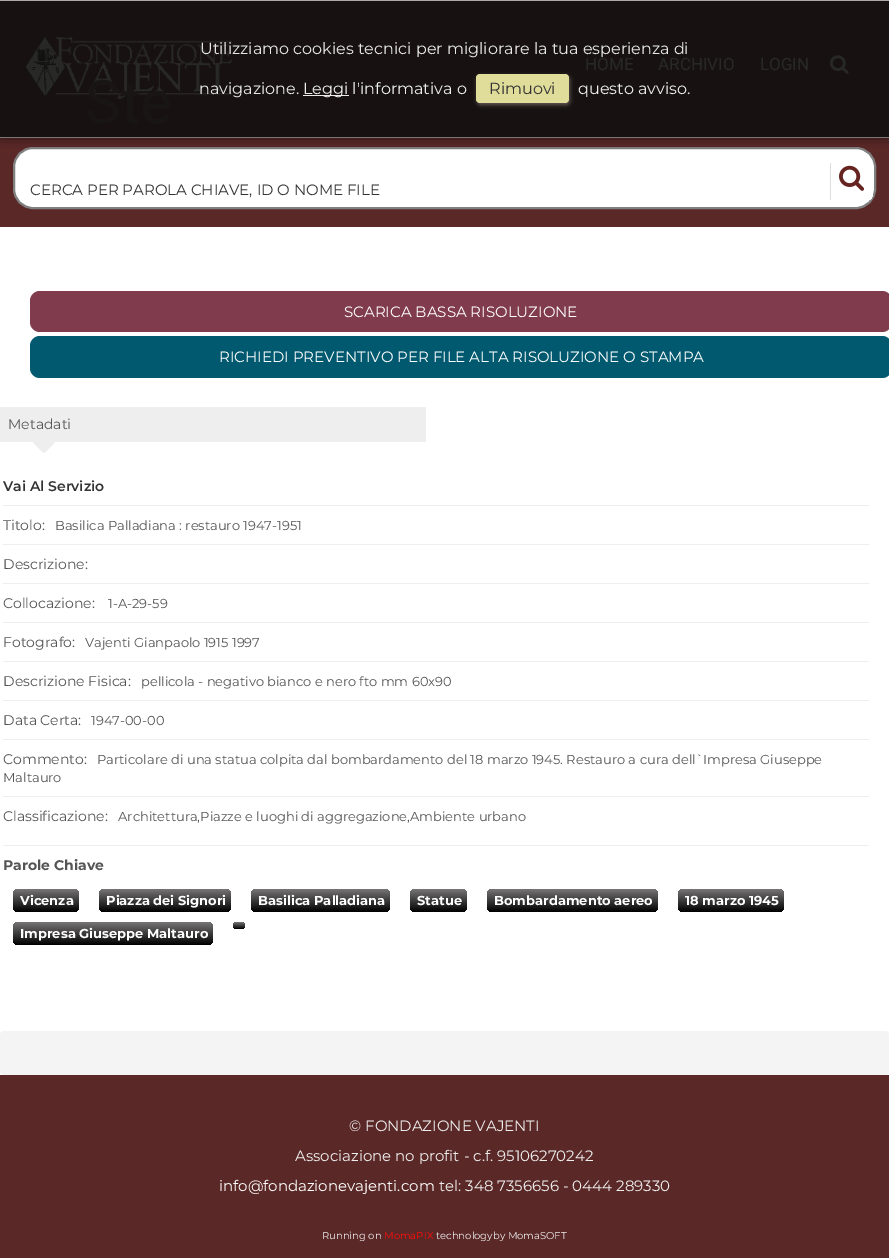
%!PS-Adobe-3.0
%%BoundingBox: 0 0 889 1258
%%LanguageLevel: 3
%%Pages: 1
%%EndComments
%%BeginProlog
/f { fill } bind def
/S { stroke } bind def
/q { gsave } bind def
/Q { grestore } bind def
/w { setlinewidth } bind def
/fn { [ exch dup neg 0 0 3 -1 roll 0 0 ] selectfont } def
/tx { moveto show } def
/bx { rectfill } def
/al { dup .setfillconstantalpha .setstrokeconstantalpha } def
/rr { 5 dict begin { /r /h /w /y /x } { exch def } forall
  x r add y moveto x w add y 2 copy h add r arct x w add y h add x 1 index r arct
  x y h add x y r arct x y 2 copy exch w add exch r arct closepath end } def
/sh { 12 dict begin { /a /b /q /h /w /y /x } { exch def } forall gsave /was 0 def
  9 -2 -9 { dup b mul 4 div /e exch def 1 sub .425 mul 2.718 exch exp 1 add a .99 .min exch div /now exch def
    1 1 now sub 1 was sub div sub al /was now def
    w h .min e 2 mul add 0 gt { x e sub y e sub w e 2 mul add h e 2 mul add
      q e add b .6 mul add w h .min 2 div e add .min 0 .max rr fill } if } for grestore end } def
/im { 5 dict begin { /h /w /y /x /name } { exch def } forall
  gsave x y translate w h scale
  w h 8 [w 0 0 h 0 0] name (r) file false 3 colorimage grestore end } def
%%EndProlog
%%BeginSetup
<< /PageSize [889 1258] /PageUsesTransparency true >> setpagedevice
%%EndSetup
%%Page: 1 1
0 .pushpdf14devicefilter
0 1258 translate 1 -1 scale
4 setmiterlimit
1 setgray
0 0 889 1258 bx
0.353 0.157 0.153 setrgbcolor
0 138 889 89 bx
0.09 0.071 0.067 setrgbcolor
0 1 889 136 bx
(image0.raw) 830 55 19 19 im
(image1.raw) 25 36 207 63 im
1 setgray
14 148 861 60 19 rr q f Q
0.502 setgray
2 w
S
q
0 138 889 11 rectclip
0 setgray
0 -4 889 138 0 7.5 0.9 sh
Q
0.682 0.663 0.663 setrgbcolor
0 0 889 1 bx
0.486 0.467 0.467 setrgbcolor
0 137 889 1 bx
/Montserrat-Regular 16 fn
0.91 0.906 0.906 setrgbcolor
(Utilizziamo cookies tecnici per migliorare la tua esperienza di) 200 54 tx
(navigazione.) 199 94 tx
0.937 0.918 0.914 setrgbcolor
303 95 46 1 bx
0.933 setgray
(Leggi l'informativa o) 303 94 tx
0.4 0.345 0.345 setrgbcolor
477 76 93 29 4 2 1 sh
0.878 0.867 0.608 setrgbcolor
476 74 93 29 4 rr f
0.2 setgray
(Rimuovi) 489 94 tx
0.933 setgray
(questo avviso.) 578 94 tx
/Roboto-Regular 17 fn
0.157 0.157 0.153 setrgbcolor
(HOME) 585 70 tx
(ARCHIVIO) 658 70 tx
(LOGIN) 760 70 tx
/Roboto-Regular 60 fn
0.098 0.082 0.078 setrgbcolor
(Ste) 85 123 tx
/Montserrat-Regular 15 fn
0.2 setgray
(CERCA PER PAROLA CHIAVE, ID O NOME FILE) 30 195 tx
0.867 setgray
830 163 1 37 bx
q
15 149 859 58 18 rr clip newpath
1 setgray
831 163 42 37 bx
Q
(image2.raw) 839 165 25 26 im
0.502 0.231 0.302 setrgbcolor
30 291 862 41 10 rr f
1 setgray
(SCARICA BASSA RISOLUZIONE) 344 317 tx
0.004 0.349 0.435 setrgbcolor
30 336 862 42 10 rr f
1 setgray
(RICHIEDI PREVENTIVO PER FILE ALTA RISOLUZIONE O STAMPA) 219 362 tx
0.933 setgray
0 407 426 35 bx
/Montserrat-Regular 14 fn
0.333 setgray
(Metadati) 8 429 tx
(image3.raw) 33 442 22 11 im
/Montserrat-SemiBold 14 fn
0.2 setgray
(Vai Al Servizio) 3 491 tx
0.933 setgray
3 505 866 1 bx
/Montserrat-Regular 14 fn
0.333 setgray
(Titolo:) 3 530 tx
/Montserrat-Regular 13 fn
(Basilica Palladiana : restauro 1947-1951) 55 530 tx
0.933 setgray
3 544 866 1 bx
/Montserrat-Regular 14 fn
0.333 setgray
(Descrizione:) 3 569 tx
0.933 setgray
3 583 866 1 bx
0.333 setgray
(Collocazione:) 3 608 tx
/Montserrat-Regular 13 fn
(1-A-29-59) 108 608 tx
0.933 setgray
3 622 866 1 bx
/Montserrat-Regular 14 fn
0.333 setgray
(Fotografo:) 3 647 tx
/Montserrat-Regular 13 fn
(Vajenti Gianpaolo 1915 1997) 85 647 tx
0.933 setgray
3 661 866 1 bx
/Montserrat-Regular 14 fn
0.333 setgray
(Descrizione Fisica:) 3 686 tx
/Montserrat-Regular 13 fn
(pellicola - negativo bianco e nero fto mm 60x90) 141 686 tx
0.933 setgray
3 700 866 1 bx
/Montserrat-Regular 14 fn
0.333 setgray
(Data Certa:) 3 725 tx
/Montserrat-Regular 13 fn
(1947-00-00) 91 725 tx
0.933 setgray
3 739 866 1 bx
/Montserrat-Regular 14 fn
0.333 setgray
(Commento:) 3 764 tx
/Montserrat-Regular 13 fn
(Particolare di una statua colpita dal bombardamento del 18 marzo 1945. Restauro a cura dell`Impresa Giuseppe) 97 764 tx
(Maltauro) 3 782 tx
0.933 setgray
3 796 866 1 bx
/Montserrat-Regular 14 fn
0.333 setgray
(Classificazione:) 3 821 tx
/Montserrat-Regular 13 fn
(Architettura,Piazze e luoghi di aggregazione,Ambiente urbano) 118 821 tx
0.933 setgray
3 845 866 1 bx
/Montserrat-Bold 14 fn
0.333 setgray
(Parole Chiave) 3 870 tx
q 13 889 66 23 5 rr clip newpath
<< /ShadingType 2 /ColorSpace /DeviceRGB /Coords [46 889 46 912] /Extend [true true] /Function << /FunctionType 2 /Domain [0 1] /C0 [0.467 0.459 0.459] /C1 [0 0 0] /N 1 >> >> shfill Q
/Montserrat-Bold 13 fn
1 setgray
(Vicenza) 20 905 tx
q 99 889 132 23 5 rr clip newpath
<< /ShadingType 2 /ColorSpace /DeviceRGB /Coords [165 889 165 912] /Extend [true true] /Function << /FunctionType 2 /Domain [0 1] /C0 [0.467 0.459 0.459] /C1 [0 0 0] /N 1 >> >> shfill Q
(Piazza dei Signori) 106 905 tx
q 251 889 139 23 5 rr clip newpath
<< /ShadingType 2 /ColorSpace /DeviceRGB /Coords [321 889 321 912] /Extend [true true] /Function << /FunctionType 2 /Domain [0 1] /C0 [0.467 0.459 0.459] /C1 [0 0 0] /N 1 >> >> shfill Q
(Basilica Palladiana) 258 905 tx
q 410 889 57 23 5 rr clip newpath
<< /ShadingType 2 /ColorSpace /DeviceRGB /Coords [439 889 439 912] /Extend [true true] /Function << /FunctionType 2 /Domain [0 1] /C0 [0.467 0.459 0.459] /C1 [0 0 0] /N 1 >> >> shfill Q
(Statue) 417 905 tx
q 487 889 171 23 5 rr clip newpath
<< /ShadingType 2 /ColorSpace /DeviceRGB /Coords [573 889 573 912] /Extend [true true] /Function << /FunctionType 2 /Domain [0 1] /C0 [0.467 0.459 0.459] /C1 [0 0 0] /N 1 >> >> shfill Q
(Bombardamento aereo) 494 905 tx
q 678 889 106 23 5 rr clip newpath
<< /ShadingType 2 /ColorSpace /DeviceRGB /Coords [731 889 731 912] /Extend [true true] /Function << /FunctionType 2 /Domain [0 1] /C0 [0.467 0.459 0.459] /C1 [0 0 0] /N 1 >> >> shfill Q
(18 marzo 1945) 685 905 tx
q 233 922 12 7 3.5 rr clip newpath
<< /ShadingType 2 /ColorSpace /DeviceRGB /Coords [239 922 239 929] /Extend [true true] /Function << /FunctionType 2 /Domain [0 1] /C0 [0.467 0.459 0.459] /C1 [0 0 0] /N 1 >> >> shfill Q
q 13 922 200 23 5 rr clip newpath
<< /ShadingType 2 /ColorSpace /DeviceRGB /Coords [113 922 113 945] /Extend [true true] /Function << /FunctionType 2 /Domain [0 1] /C0 [0.467 0.459 0.459] /C1 [0 0 0] /N 1 >> >> shfill Q
(Impresa Giuseppe Maltauro) 20 938 tx
0.961 0.957 0.957 setrgbcolor
0 1031 889 44 4 rr f
0.353 0.157 0.153 setrgbcolor
0 1075 889 183 bx
/Montserrat-Regular 15 fn
0.933 setgray
(© FONDAZIONE VAJENTI) 349 1131 tx
(Associazione no profit - c.f. 95106270242) 295 1161 tx
1 setgray
(info@fondazionevajenti.com) 219 1191 tx
0.933 setgray
(tel: 348 7356656 - 0444 289330) 439 1191 tx
/Montserrat-Regular 10 fn
(Running on) 322 1239 tx
1 0.047 0.039 setrgbcolor
(MomaPIX) 384 1239 tx
0.933 setgray
(technologyby MomaSOFT) 436 1239 tx
.poppdf14devicefilter showpage
%%EOF
